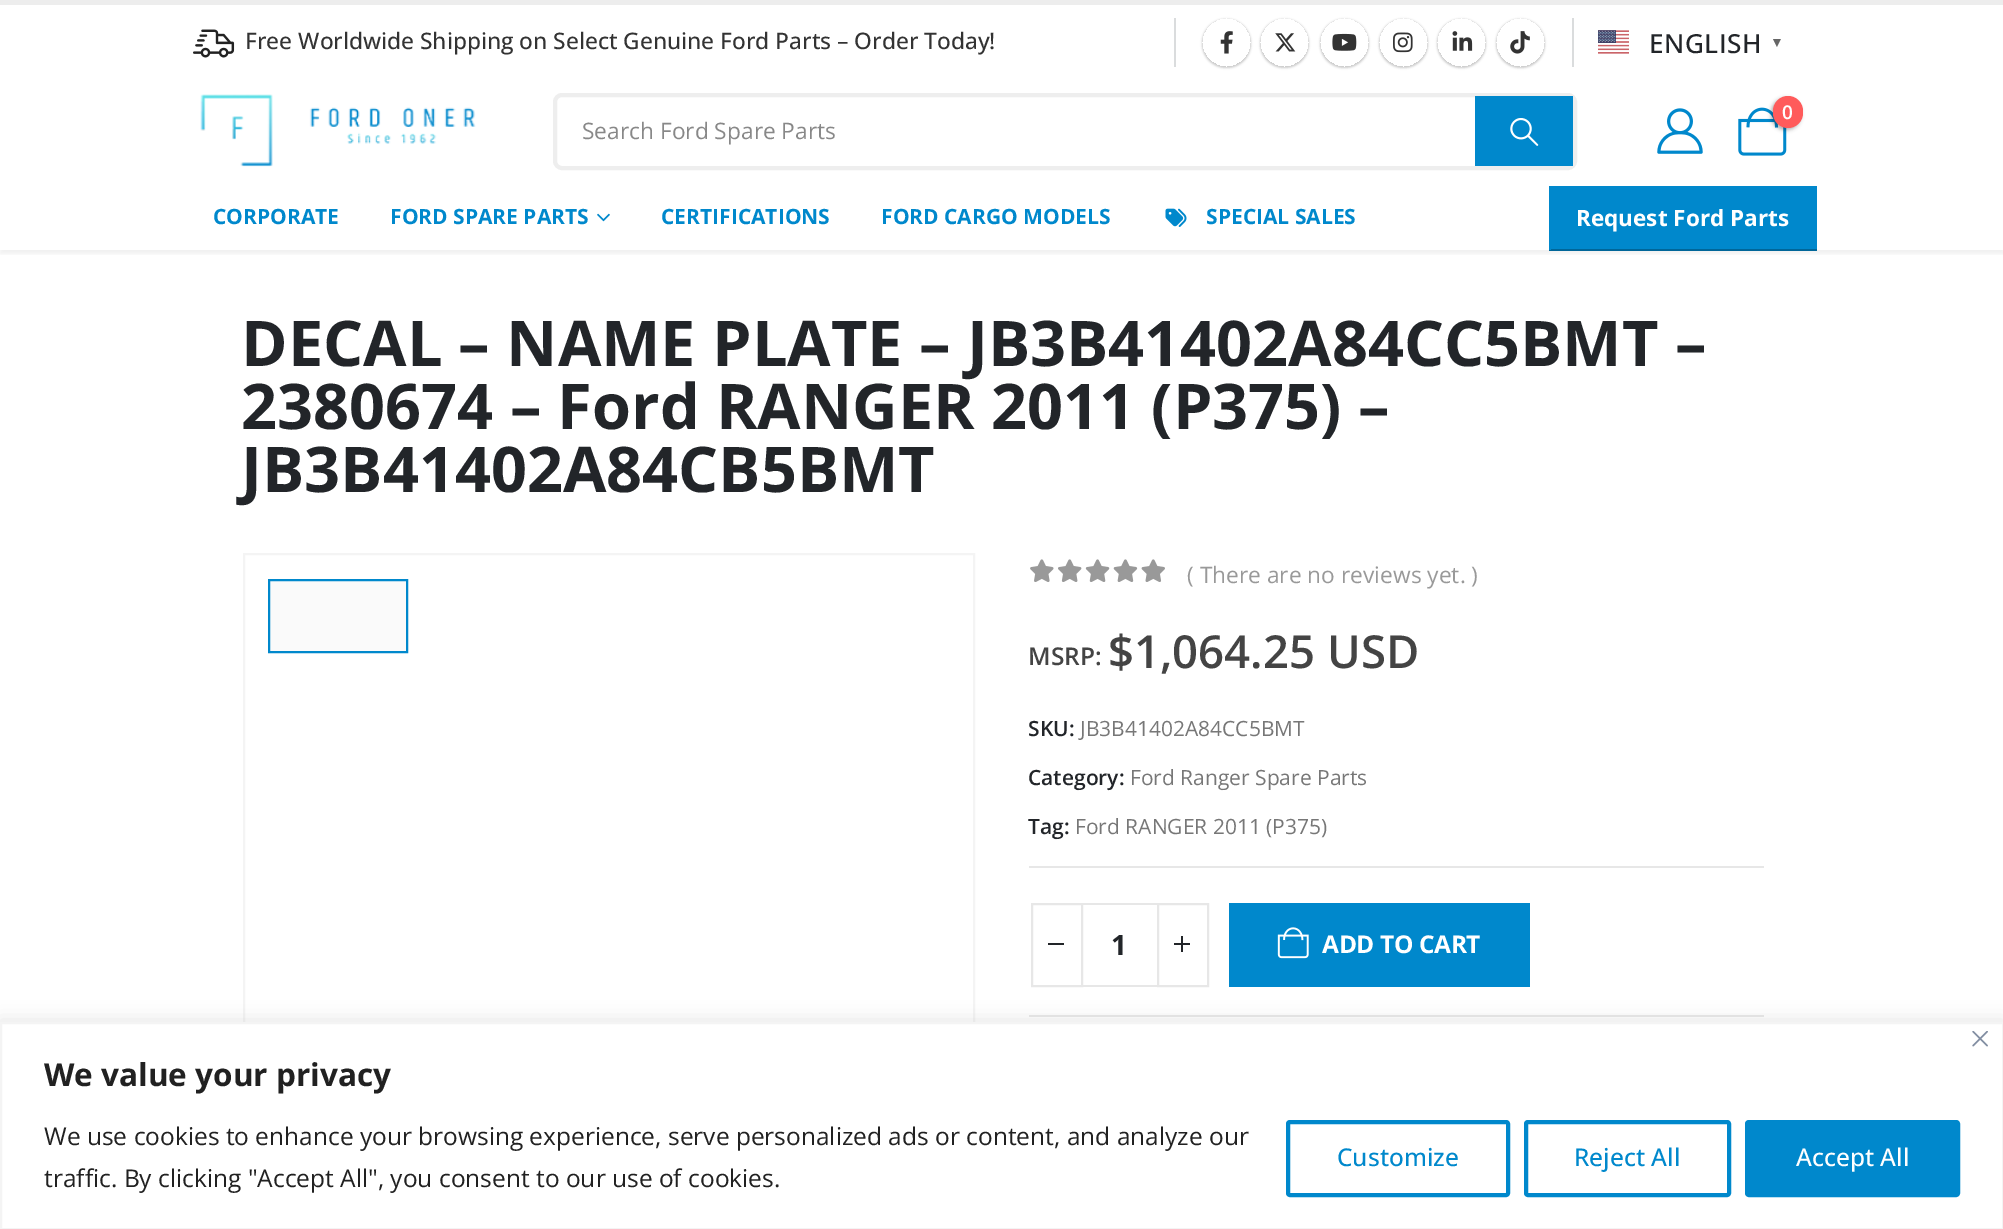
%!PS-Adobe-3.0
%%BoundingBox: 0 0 2003 1229
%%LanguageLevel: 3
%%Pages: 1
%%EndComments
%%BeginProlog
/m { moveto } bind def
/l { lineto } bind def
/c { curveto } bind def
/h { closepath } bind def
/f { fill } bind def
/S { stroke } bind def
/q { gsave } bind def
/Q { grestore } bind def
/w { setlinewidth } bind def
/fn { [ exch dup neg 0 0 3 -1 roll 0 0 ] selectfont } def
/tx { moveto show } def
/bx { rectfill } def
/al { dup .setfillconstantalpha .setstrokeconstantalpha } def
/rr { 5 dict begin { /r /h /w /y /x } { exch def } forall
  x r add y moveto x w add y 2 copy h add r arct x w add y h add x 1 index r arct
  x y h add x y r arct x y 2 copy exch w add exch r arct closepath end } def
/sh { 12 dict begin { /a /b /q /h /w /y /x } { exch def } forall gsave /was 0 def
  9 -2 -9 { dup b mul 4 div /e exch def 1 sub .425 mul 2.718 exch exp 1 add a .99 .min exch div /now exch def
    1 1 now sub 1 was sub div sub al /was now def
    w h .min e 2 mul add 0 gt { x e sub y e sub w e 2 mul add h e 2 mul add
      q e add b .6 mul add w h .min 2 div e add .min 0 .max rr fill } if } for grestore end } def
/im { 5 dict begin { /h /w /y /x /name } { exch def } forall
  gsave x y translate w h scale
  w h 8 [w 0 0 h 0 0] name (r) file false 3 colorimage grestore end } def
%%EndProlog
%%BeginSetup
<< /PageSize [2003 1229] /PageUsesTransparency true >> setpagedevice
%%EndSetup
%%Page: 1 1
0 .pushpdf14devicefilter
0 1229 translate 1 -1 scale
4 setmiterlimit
1 setgray
0 0 2003 1229 bx
q
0 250 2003 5 rectclip
0 setgray
0 4 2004 250 0 2 0.06 sh
Q
0.929 setgray
0 0 2003 5 bx
(image0.raw) 193 29 42 29 im
/OpenSans-Medium 22.75 fn
0.2 setgray
(Free Worldwide Shipping on Select Genuine Ford Parts – Order Today!) 245 49 tx
0.855 0.863 0.867 setrgbcolor
1174 18 2 49 bx
q
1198 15 m 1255 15 l 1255 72 l 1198 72 l h 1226.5 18 m 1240 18 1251 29 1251 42.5 c 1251 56 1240 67 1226.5 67 c 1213 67 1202 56 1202 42.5 c 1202 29 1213 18 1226.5 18 c h eoclip newpath
0 setgray
1202 19 49 49 24.5 1 0.2 sh
Q
(image1.raw) 1220 31 13 23 im
q
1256 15 m 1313 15 l 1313 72 l 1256 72 l h 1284.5 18 m 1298 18 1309 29 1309 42.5 c 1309 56 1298 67 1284.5 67 c 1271 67 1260 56 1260 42.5 c 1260 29 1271 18 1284.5 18 c h eoclip newpath
0 setgray
1260 19 49 49 24.5 1 0.2 sh
Q
(image2.raw) 1275 33 21 19 im
q
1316 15 m 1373 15 l 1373 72 l 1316 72 l h 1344.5 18 m 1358 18 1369 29 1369 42.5 c 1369 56 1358 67 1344.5 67 c 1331 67 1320 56 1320 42.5 c 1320 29 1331 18 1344.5 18 c h eoclip newpath
0 setgray
1320 19 49 49 24.5 1 0.2 sh
Q
(image3.raw) 1332 33 25 18 im
q
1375 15 m 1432 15 l 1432 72 l 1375 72 l h 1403.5 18 m 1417 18 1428 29 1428 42.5 c 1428 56 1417 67 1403.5 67 c 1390 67 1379 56 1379 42.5 c 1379 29 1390 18 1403.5 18 c h eoclip newpath
0 setgray
1379 19 49 49 24.5 1 0.2 sh
Q
(image4.raw) 1393 32 20 21 im
q
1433 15 m 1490 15 l 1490 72 l 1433 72 l h 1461.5 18 m 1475 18 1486 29 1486 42.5 c 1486 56 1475 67 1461.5 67 c 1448 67 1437 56 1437 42.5 c 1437 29 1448 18 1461.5 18 c h eoclip newpath
0 setgray
1437 19 49 49 24.5 1 0.2 sh
Q
(image5.raw) 1452 31 21 20 im
q
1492 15 m 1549 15 l 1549 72 l 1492 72 l h 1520.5 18 m 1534 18 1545 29 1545 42.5 c 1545 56 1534 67 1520.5 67 c 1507 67 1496 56 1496 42.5 c 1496 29 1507 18 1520.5 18 c h eoclip newpath
0 setgray
1496 19 49 49 24.5 1 0.2 sh
Q
(image6.raw) 1510 31 20 23 im
1572 18 2 49 bx
(image7.raw) 1598 30 31 24 im
/OpenSans-Medium 26.25 fn
0.133 0.145 0.161 setrgbcolor
1649 53 m 0.5 0 (ENGLISH) ashow
/LiberationSans-Bold 14 fn
0.4 setgray
1770 47 m 0.5 0 (▼) ashow
(image8.raw) 200 94 276 73 im
0.933 setgray
4 w
555 95 1020 73 7 rr S
/OpenSans-Regular 22.75 fn
0.533 setgray
(Search Ford Spare Parts) 582 139 tx
0 0.533 0.8 setrgbcolor
1475 96 98 70 bx
(image9.raw) 1510 118 29 28 im
(image10.raw) 1657 108 46 46 im
(image11.raw) 1738 107 49 49 im
0 setgray
1771 98 30 32 15 2 0.3 sh
1 0.357 0.357 setrgbcolor
1773 96 30 32 15 rr f
/OpenSans-SemiBold 19 fn
1 setgray
(0) 1782 119 tx
/OpenSans-Bold 21 fn
0 0.533 0.8 setrgbcolor
(CORPORATE) 213 224 tx
(FORD SPARE PARTS) 390 224 tx
(image12.raw) 597 213 13 9 im
(CERTIFICATIONS) 661 224 tx
(FORD CARGO MODELS) 881 224 tx
(image13.raw) 1165 208 22 19 im
(SPECIAL SALES) 1206 224 tx
1551 186 266 63 bx
0 0.4 0.6 setrgbcolor
1549 249 268 2 bx
0 0.533 0.8 setrgbcolor
1549 186 2 64 bx
/OpenSans-Bold 22.5 fn
1 setgray
(Request Ford Parts) 1576 226 tx
/OpenSans-Bold 63 fn
0.133 0.145 0.161 setrgbcolor
(DECAL – NAME PLATE – JB3B41402A84CC5BMT –) 241 366 tx
(2380674 – Ford RANGER 2011 \(P375\) –) 241 429 tx
(JB3B41402A84CB5BMT) 241 492 tx
0.957 setgray
2 w
244 554 730 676 rectstroke
0.98 setgray
269 580 m 407 580 l 407 652 l 269 652 l h q f Q
0 0.533 0.8 setrgbcolor
S
(image14.raw) 1030 559 135 23 im
/OpenSans-Regular 22.75 fn
0.6 setgray
(\( There are no reviews yet. \)) 1187 583 tx
/OpenSans-SemiBold 24.5 fn
0.267 setgray
(MSRP:) 1028 665 tx
/OpenSans-SemiBold 45.5 fn
($1,064.25 USD) 1108 668 tx
/OpenSans-SemiBold 21 fn
0.133 0.145 0.161 setrgbcolor
(SKU:) 1028 736 tx
/OpenSans-Regular 21 fn
0.467 setgray
(JB3B41402A84CC5BMT) 1080 736 tx
/OpenSans-SemiBold 21 fn
0.133 0.145 0.161 setrgbcolor
(Category:) 1028 785 tx
/OpenSans-Regular 21 fn
0.467 setgray
(Ford Ranger Spare Parts) 1130 785 tx
/OpenSans-SemiBold 21 fn
0.133 0.145 0.161 setrgbcolor
(Tag:) 1028 834 tx
/OpenSans-Regular 21 fn
0.467 setgray
(Ford RANGER 2011 \(P375\)) 1075 834 tx
0.906 setgray
1029 866 735 2 bx
1029 1015 735 2 bx
1032 904 50 82 rectstroke
0.133 0.145 0.161 setrgbcolor
1048 943 16 2 bx
0.906 setgray
1082 903 77 2 bx
1082 985 77 2 bx
/OpenSans-Bold 28 fn
0.133 0.145 0.161 setrgbcolor
(1) 1111 955 tx
0.906 setgray
1158 904 50 82 rectstroke
0.133 0.145 0.161 setrgbcolor
1174 943 16 2 bx
1181 936 2 16 bx
0 0.533 0.8 setrgbcolor
1229 903 301 84 bx
(image15.raw) 1277 927 32 32 im
/OpenSans-Bold 24.5 fn
1 setgray
1322 953 m -0.4 0 (ADD TO CART) ashow
0.675 0.671 0.671 setrgbcolor
0 1020 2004 209 0 9 0.3 sh
1 setgray
1 1023 m 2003 1023 l 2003 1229 l 1 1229 l h q f Q
0.957 setgray
S
(image16.raw) 1972 1031 16 16 im
/OpenSans-Bold 31.5 fn
0.129 setgray
(We value your privacy) 44 1086 tx
/OpenSans-Regular 24.5 fn
(We use cookies to enhance your browsing experience, serve personalized ads or content, and analyze our) 44 1145 tx
(traffic. By clicking "Accept All", you consent to our use of cookies.) 44 1187 tx
0 0.533 0.8 setrgbcolor
4 w
1288 1122 220 73 2 rr S
/OpenSans-Medium 24.5 fn
(Customize) 1337 1166 tx
1526 1122 203 73 2 rr S
(Reject All) 1574 1166 tx
1747 1122 211 73 2 rr q f Q
S
1 setgray
(Accept All) 1796 1166 tx
.poppdf14devicefilter showpage
%%EOF
